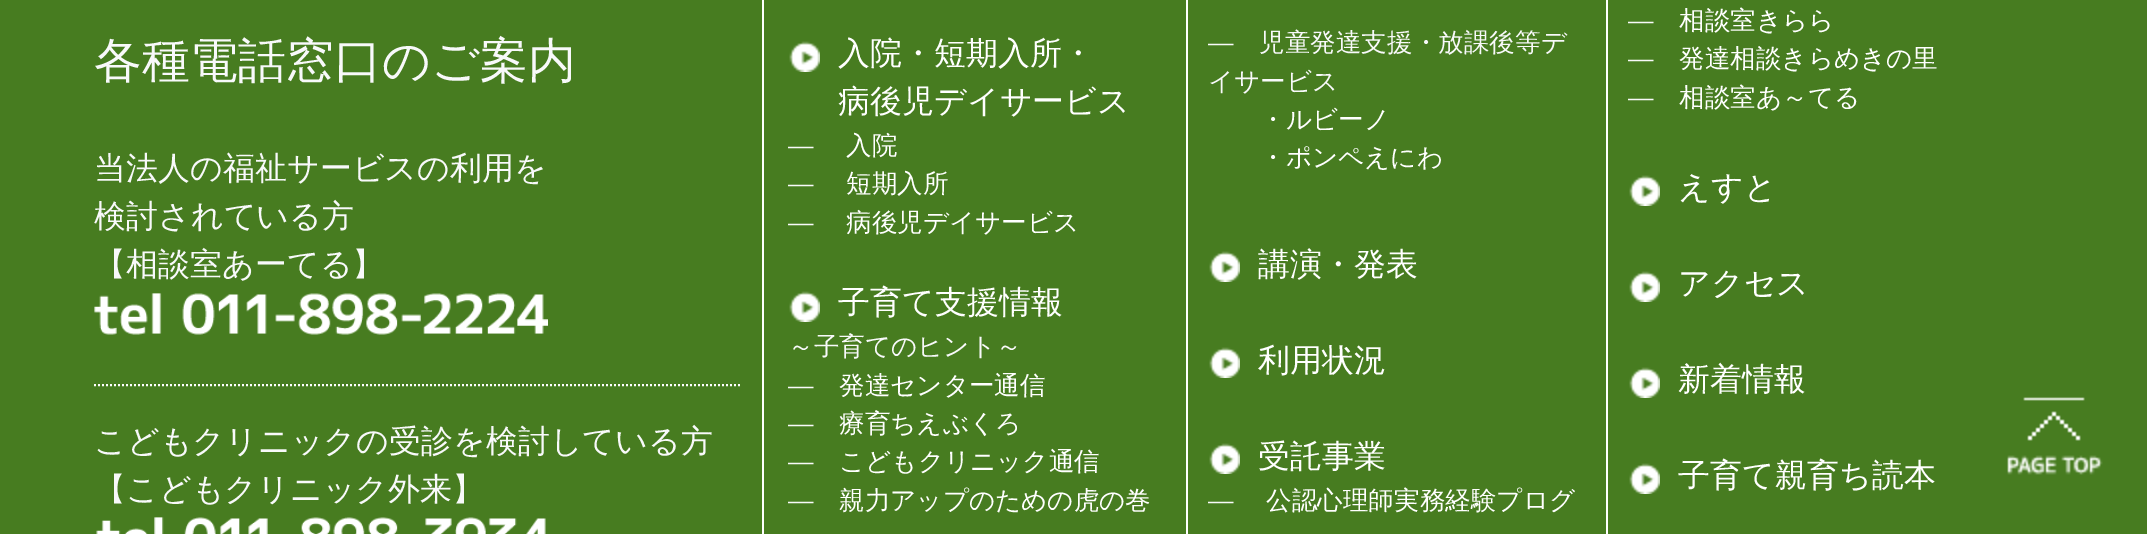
%!PS-Adobe-3.0
%%BoundingBox: 0 0 2147 534
%%LanguageLevel: 3
%%Pages: 1
%%EndComments
%%BeginProlog
/m { moveto } bind def
/l { lineto } bind def
/S { stroke } bind def
/w { setlinewidth } bind def
/fn { [ exch dup neg 0 0 3 -1 roll 0 0 ] selectfont } def
/tx { moveto show } def
/bx { rectfill } def
/im { 5 dict begin { /h /w /y /x /name } { exch def } forall
  gsave x y translate w h scale
  w h 8 [w 0 0 h 0 0] name (r) file false 3 colorimage grestore end } def
%%EndProlog
%%BeginSetup
<< /PageSize [2147 534] >> setpagedevice
%%EndSetup
%%Page: 1 1
0 534 translate 1 -1 scale
4 setmiterlimit
0.278 0.486 0.125 setrgbcolor
0 0 2147 534 bx
1 setgray
762 0 2 534 bx
2 w
[2 2] 0 setdash
94 385 m 742 385 l S
/WenQuanYiZenHei-Medium 48 fn
0.973 0.976 0.98 setrgbcolor
(各種電話窓口のご案内) 94 77 tx
/WenQuanYiZenHei-Medium 32 fn
(当法人の福祉サービスの利用を) 94 179 tx
(検討されている方) 94 227 tx
(【相談室あーてる】) 94 275 tx
(image0.raw) 94 293 454 42 im
(こどもクリニックの受診を検討している方) 94 452 tx
(【こどもクリニック外来】) 94 500 tx
(image1.raw) 96 517 450 17 im
1 setgray
1186 0 2 534 bx
(image2.raw) 789 41 31 31 im
(入院・短期入所・) 838 64 tx
(病後児デイサービス) 838 112 tx
/LiberationSans-Regular 25.6 fn
0.973 0.976 0.98 setrgbcolor
(―) 788 154 tx
/WenQuanYiZenHei-Medium 25.6 fn
1 setgray
(入院) 846 154 tx
/LiberationSans-Regular 25.6 fn
0.973 0.976 0.98 setrgbcolor
(―) 788 192 tx
/WenQuanYiZenHei-Medium 25.6 fn
1 setgray
(短期入所) 846 192 tx
/LiberationSans-Regular 25.6 fn
0.973 0.976 0.98 setrgbcolor
(―) 788 231 tx
/WenQuanYiZenHei-Medium 25.6 fn
1 setgray
(病後児デイサービス) 846 231 tx
(image2.raw) 789 291 31 31 im
/WenQuanYiZenHei-Medium 32 fn
(子育て支援情報) 838 313 tx
/WenQuanYiZenHei-Medium 25.6 fn
0.973 0.976 0.98 setrgbcolor
(～子育てのヒント～) 788 355 tx
/LiberationSans-Regular 25.6 fn
(―) 788 394 tx
/WenQuanYiZenHei-Medium 25.6 fn
1 setgray
(発達センター通信) 839 394 tx
/LiberationSans-Regular 25.6 fn
0.973 0.976 0.98 setrgbcolor
(―) 788 432 tx
/WenQuanYiZenHei-Medium 25.6 fn
1 setgray
(療育ちえぶくろ) 839 432 tx
/LiberationSans-Regular 25.6 fn
0.973 0.976 0.98 setrgbcolor
(―) 788 470 tx
/WenQuanYiZenHei-Medium 25.6 fn
1 setgray
(こどもクリニック通信) 839 470 tx
/LiberationSans-Regular 25.6 fn
0.973 0.976 0.98 setrgbcolor
(―) 788 509 tx
/WenQuanYiZenHei-Medium 25.6 fn
1 setgray
(親力アップのための虎の巻) 839 509 tx
1606 0 2 534 bx
/LiberationSans-Regular 25.6 fn
0.973 0.976 0.98 setrgbcolor
(―) 1208 51 tx
/WenQuanYiZenHei-Medium 25.6 fn
(児童発達支援・放課後等デ) 1259 51 tx
(イサービス) 1208 90 tx
1 setgray
(・ルビーノ) 1260 128 tx
(・ポンペえにわ) 1260 166 tx
(image2.raw) 1209 251 31 31 im
/WenQuanYiZenHei-Medium 32 fn
(講演・発表) 1258 275 tx
(image2.raw) 1209 347 31 31 im
(利用状況) 1258 371 tx
(image2.raw) 1209 443 31 31 im
(受託事業) 1258 467 tx
/LiberationSans-Regular 25.6 fn
0.973 0.976 0.98 setrgbcolor
(―) 1208 509 tx
/WenQuanYiZenHei-Medium 25.6 fn
1 setgray
(公認心理師実務経験プログ) 1266 509 tx
/LiberationSans-Regular 25.6 fn
0.973 0.976 0.98 setrgbcolor
(―) 1628 29 tx
/WenQuanYiZenHei-Medium 25.6 fn
1 setgray
(相談室きらら) 1679 29 tx
/LiberationSans-Regular 25.6 fn
0.973 0.976 0.98 setrgbcolor
(―) 1628 67 tx
/WenQuanYiZenHei-Medium 25.6 fn
1 setgray
(発達相談きらめきの里) 1679 67 tx
/LiberationSans-Regular 25.6 fn
0.973 0.976 0.98 setrgbcolor
(―) 1628 106 tx
/WenQuanYiZenHei-Medium 25.6 fn
1 setgray
(相談室あ～てる) 1679 106 tx
(image2.raw) 1629 175 31 31 im
/WenQuanYiZenHei-Medium 32 fn
(えすと) 1678 198 tx
(image2.raw) 1629 271 31 31 im
(アクセス) 1678 294 tx
(image2.raw) 1629 367 31 31 im
(新着情報) 1678 390 tx
(image2.raw) 1629 463 31 31 im
(子育て親育ち読本) 1678 486 tx
(image3.raw) 2007 397 96 78 im
showpage
%%EOF
